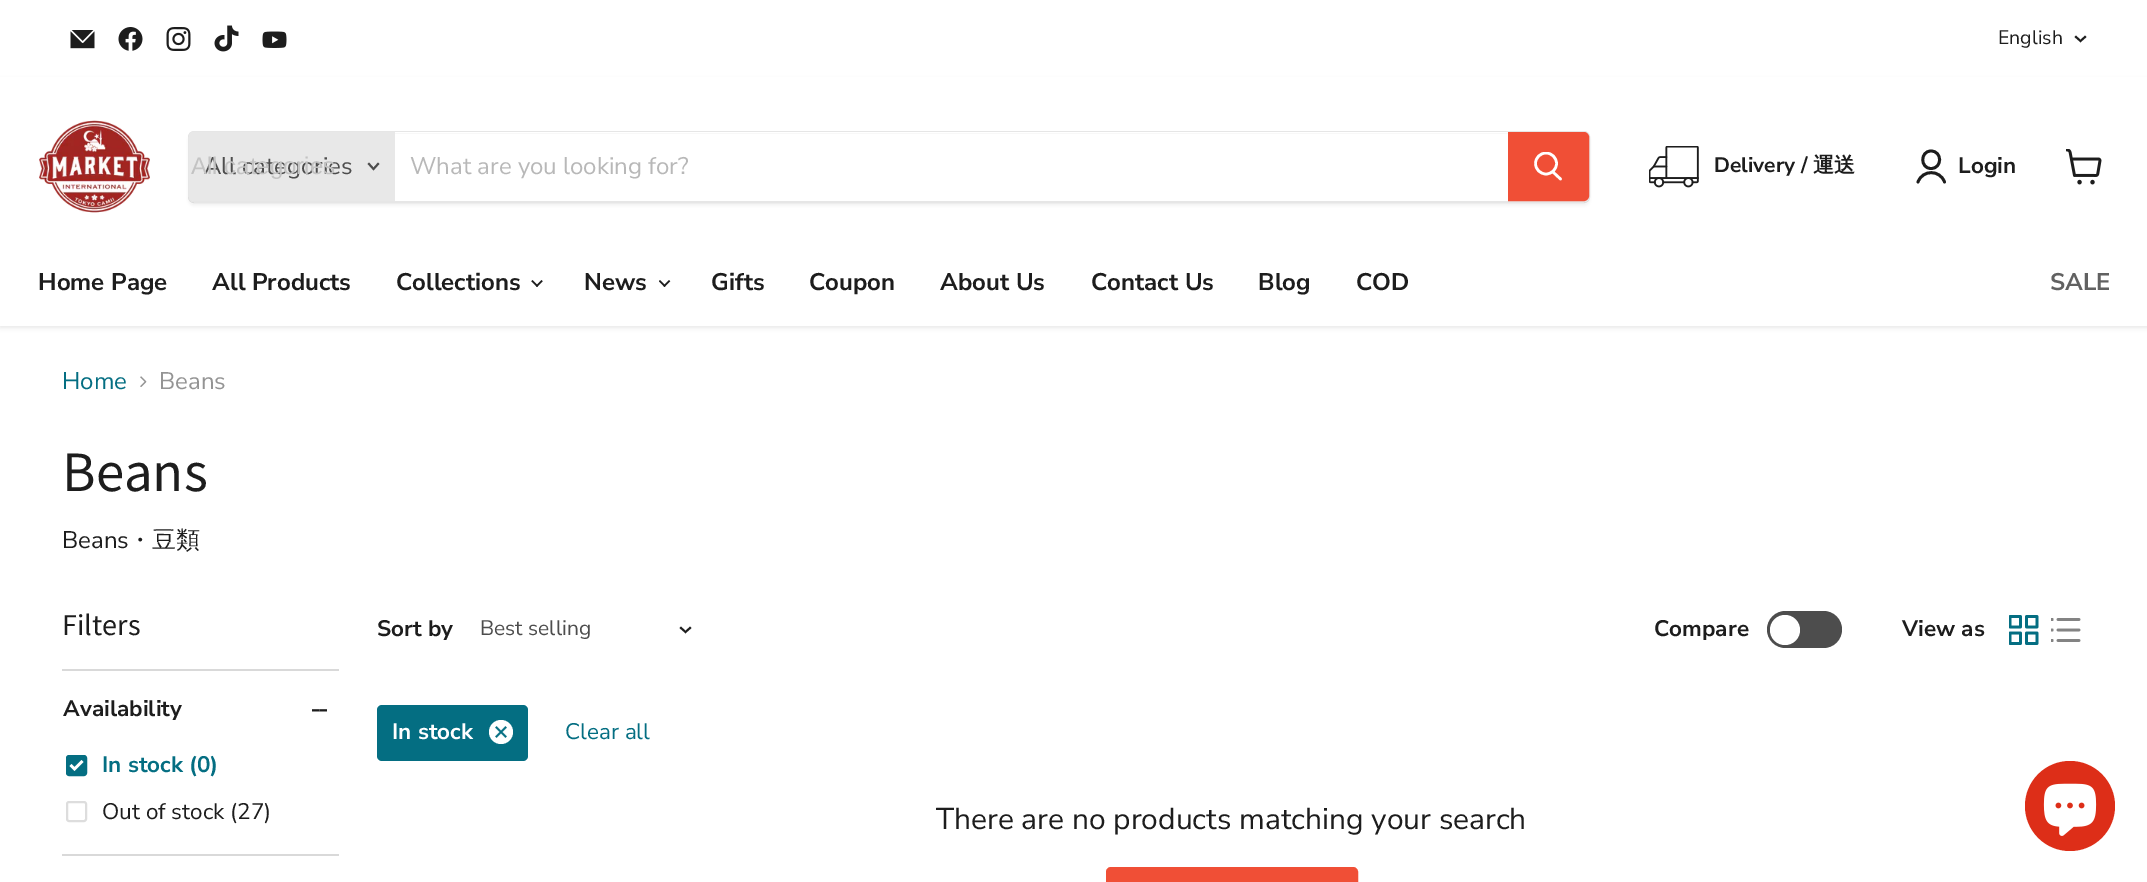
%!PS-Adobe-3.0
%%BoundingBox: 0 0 2147 882
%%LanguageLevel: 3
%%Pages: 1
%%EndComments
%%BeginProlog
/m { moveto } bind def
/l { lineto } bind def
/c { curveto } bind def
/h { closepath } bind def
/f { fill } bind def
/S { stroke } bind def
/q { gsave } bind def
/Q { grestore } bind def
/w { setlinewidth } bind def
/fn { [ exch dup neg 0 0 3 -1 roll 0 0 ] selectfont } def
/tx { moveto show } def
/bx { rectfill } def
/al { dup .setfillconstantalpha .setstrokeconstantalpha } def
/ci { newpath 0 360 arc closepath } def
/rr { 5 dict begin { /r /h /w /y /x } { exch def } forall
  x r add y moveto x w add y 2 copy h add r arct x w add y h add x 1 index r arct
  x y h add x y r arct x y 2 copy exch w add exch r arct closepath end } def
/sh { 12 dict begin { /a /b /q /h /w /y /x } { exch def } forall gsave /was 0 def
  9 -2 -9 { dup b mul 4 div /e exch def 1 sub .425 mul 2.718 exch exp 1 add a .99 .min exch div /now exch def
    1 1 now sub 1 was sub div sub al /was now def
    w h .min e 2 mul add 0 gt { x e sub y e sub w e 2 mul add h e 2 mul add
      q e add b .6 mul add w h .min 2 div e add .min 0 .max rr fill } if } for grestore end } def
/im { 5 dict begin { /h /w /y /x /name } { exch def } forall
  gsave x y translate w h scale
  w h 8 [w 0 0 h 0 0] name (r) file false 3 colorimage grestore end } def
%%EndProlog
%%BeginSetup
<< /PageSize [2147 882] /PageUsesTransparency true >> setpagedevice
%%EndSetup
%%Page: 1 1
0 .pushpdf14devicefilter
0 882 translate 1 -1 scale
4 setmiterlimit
1 setgray
0 0 2147 882 bx
(image0.raw) 70 30 25 19 im
(image1.raw) 118 27 25 24 im
(image2.raw) 166 27 25 24 im
(image3.raw) 214 25 25 27 im
(image4.raw) 262 31 25 17 im
/NunitoSans-Regular 19.5 fn
0.114 setgray
(English) 1998 44 tx
1.9 w
2 setlinecap
2080.5 41 m 2085 37 l 2080.5 41 m 2076 37 l S
0.502 setgray
0 81 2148 246 0 3 0.25 sh
1 setgray
0 77 2147 249 bx
(image5.raw) 39 120 111 93 im
q
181 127 m 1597 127 l 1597 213 l 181 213 l h 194 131 m 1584 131 l 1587.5 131 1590 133.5 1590 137 c 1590 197 l 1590 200.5 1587.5 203 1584 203 c 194 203 l 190.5 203 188 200.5 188 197 c 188 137 l 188 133.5 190.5 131 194 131 c h eoclip newpath
0.502 setgray
188 134 1402 72 6 2 0.11 sh
Q
0.2 al
0.502 setgray
2 w
0 setlinecap
189 132 1400 70 5 rr S
1 al
0.91 setgray
194 132 m 395 132 l 395 201 l 194 201 l 191 201 189 199 189 196 c 189 137 l 189 134 191 132 194 132 c h f
/NunitoSans-Regular 24 fn
0.302 setgray
(All categories) 204 174 tx
/LiberationSans-Regular 24 fn
0.765 setgray
(All categories) 191 174 tx
0.302 setgray
1.9 w
2 setlinecap
373.5 169 m 378 164 l 373.5 169 m 369 164 l S
1 setgray
395 132 1113 1 bx
/NunitoSans-Regular 24 fn
0.722 setgray
(What are you looking for?) 410 174 tx
0.941 0.31 0.212 setrgbcolor
1509 133 m 1584 133 l 1586 133 1588 135 1588 137 c 1588 196 l 1588 198 1586 200 1584 200 c 1509 200 l h q f Q
2 w
0 setlinecap
S
1 setgray
2.6 w
1 setlinecap
1560.5 179 m 1553 172 l S
q
1533 152 30 31 rectclip
0 setlinecap
1546 163.5 10.5 ci S
Q
(image6.raw) 1649 146 50 42 im
/NunitoSans-Bold 21 fn
0.114 setgray
(Delivery /) 1714 172 tx
/WenQuanYiZenHei-Bold 21 fn
(運送) 1813 172 tx
2.8 w
1 setlinejoin
1931 168.5 m 1942.5 168.5 1942.5 151 1931 151 c 1920 151 1920 168.5 1931 168.5 c h 1944.5 182 m 1940 169.5 1922.5 169.5 1918 182 c S
/NunitoSans-Bold 22.5 fn
(Login) 1958 173 tx
(image7.raw) 2066 149 36 36 im
/NunitoSans-Bold 24 fn
(Home Page) 38 290 tx
(All Products) 212 290 tx
(Collections) 396 290 tx
(image8.raw) 531 280 12 7 im
(News) 584 290 tx
(image9.raw) 659 280 12 7 im
(Gifts) 711 290 tx
(Coupon) 809 290 tx
(About Us) 940 290 tx
(Contact Us) 1091 290 tx
(Blog) 1258 290 tx
(COD) 1356 290 tx
0.38 setgray
(SALE) 2050 290 tx
/NunitoSans-Regular 24 fn
0.016 0.431 0.51 setrgbcolor
(Home) 62 389 tx
(image10.raw) 140 376 7 11 im
0.58 setgray
(Beans) 159 389 tx
/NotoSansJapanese-Regular 51 fn
0.114 setgray
(Beans) 62 491 tx
/NunitoSans-Regular 24 fn
(Beans) 62 548 tx
/WenQuanYiZenHei-Medium 24 fn
(・豆類) 128 548 tx
/NotoSansJapanese-Regular 27 fn
(Filters) 62 635 tx
0.851 setgray
62 669 277 2 bx
/NunitoSans-Bold 22.5 fn
0.114 setgray
(Availability) 63 716 tx
(image11.raw) 312 709 15 3 im
0.016 0.431 0.51 setrgbcolor
67 756 19 19 2 rr q f Q
2 w
0 setlinecap
0 setlinejoin
S
1 setgray
2.6 w
70.5 765 m 74.5 769 l 82.5 761 l S
0.016 0.431 0.51 setrgbcolor
(In stock \(0\)) 102 772 tx
0.867 setgray
2 w
67 802 19 19 2 rr S
/NunitoSans-Regular 22.5 fn
0.114 setgray
(Out of stock \(27\)) 102 819 tx
0.851 setgray
62 854 277 2 bx
/NunitoSans-Bold 22.5 fn
0.114 setgray
(Sort by) 377 636 tx
/NunitoSans-Regular 21 fn
0.302 setgray
(Best selling) 480 635 tx
0.114 setgray
1.9 w
2 setlinecap
685.5 632 m 690 628 l 685.5 632 m 681 628 l S
/NunitoSans-Bold 22.5 fn
(Compare) 1654 636 tx
0.302 setgray
1767 611 75 37 18.5 rr f
1 setgray
1785 630 15 ci f
0.114 setgray
(View as) 1902 636 tx
(image12.raw) 2009 615 30 30 im
(image13.raw) 2051 618 30 24 im
0.016 0.431 0.51 setrgbcolor
377 705 151 56 5 rr f
1 setgray
(In stock) 392 739 tx
501 732 12 ci f
(image14.raw) 495 726 12 12 im
/NunitoSans-Regular 22.5 fn
0.016 0.431 0.51 setrgbcolor
(Clear all) 565 739 tx
/NunitoSans-Regular 30 fn
0.114 setgray
(There are no products matching your search) 936 829 tx
0.941 0.31 0.212 setrgbcolor
1107 868 250 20 4 rr q f Q
2 w
0 setlinecap
S
0.867 0.18 0.094 setrgbcolor
2070 806 45 ci f
(image15.raw) 2043 783 54 53 im
.poppdf14devicefilter showpage
%%EOF
